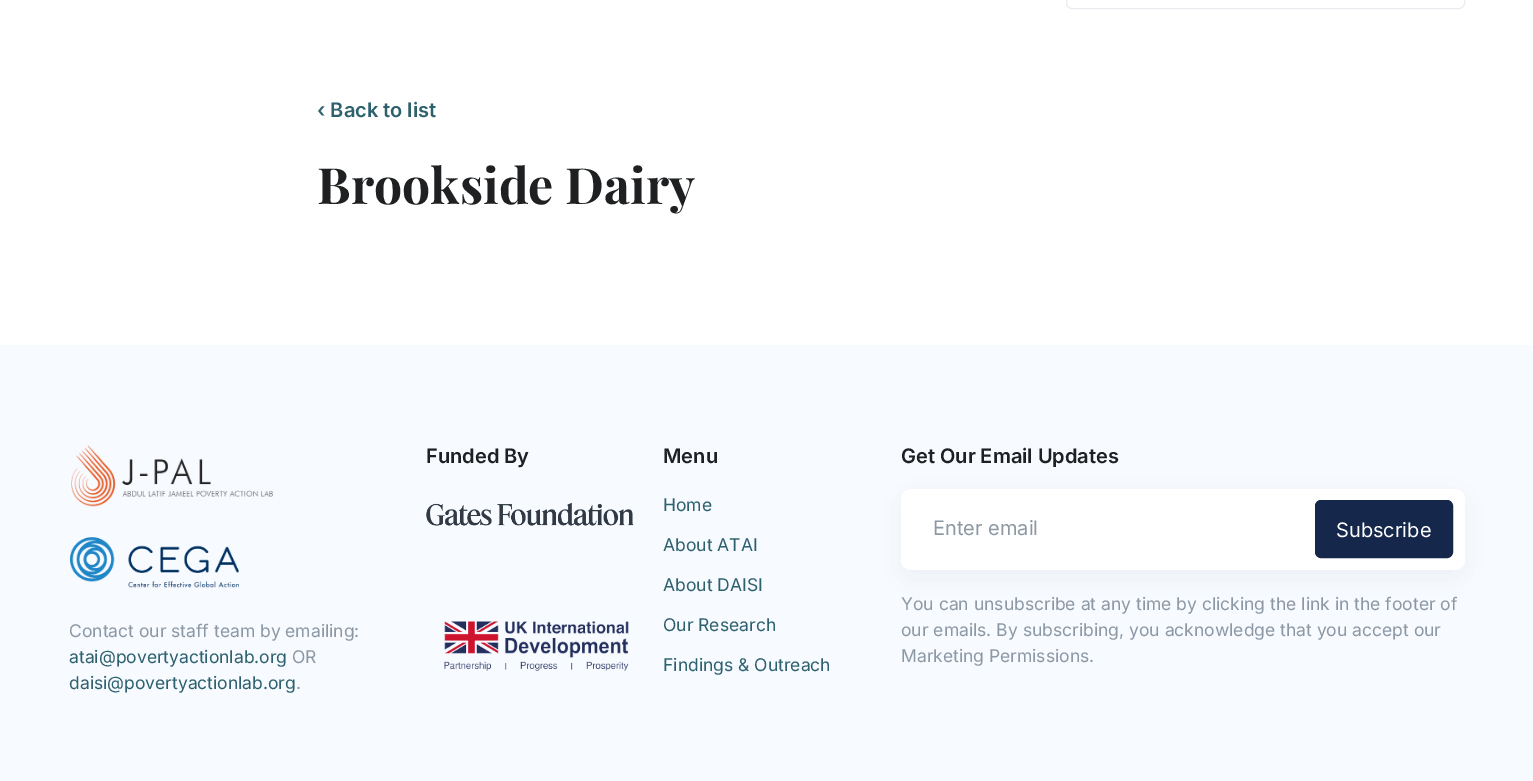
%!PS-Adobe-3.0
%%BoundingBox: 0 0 1533 781
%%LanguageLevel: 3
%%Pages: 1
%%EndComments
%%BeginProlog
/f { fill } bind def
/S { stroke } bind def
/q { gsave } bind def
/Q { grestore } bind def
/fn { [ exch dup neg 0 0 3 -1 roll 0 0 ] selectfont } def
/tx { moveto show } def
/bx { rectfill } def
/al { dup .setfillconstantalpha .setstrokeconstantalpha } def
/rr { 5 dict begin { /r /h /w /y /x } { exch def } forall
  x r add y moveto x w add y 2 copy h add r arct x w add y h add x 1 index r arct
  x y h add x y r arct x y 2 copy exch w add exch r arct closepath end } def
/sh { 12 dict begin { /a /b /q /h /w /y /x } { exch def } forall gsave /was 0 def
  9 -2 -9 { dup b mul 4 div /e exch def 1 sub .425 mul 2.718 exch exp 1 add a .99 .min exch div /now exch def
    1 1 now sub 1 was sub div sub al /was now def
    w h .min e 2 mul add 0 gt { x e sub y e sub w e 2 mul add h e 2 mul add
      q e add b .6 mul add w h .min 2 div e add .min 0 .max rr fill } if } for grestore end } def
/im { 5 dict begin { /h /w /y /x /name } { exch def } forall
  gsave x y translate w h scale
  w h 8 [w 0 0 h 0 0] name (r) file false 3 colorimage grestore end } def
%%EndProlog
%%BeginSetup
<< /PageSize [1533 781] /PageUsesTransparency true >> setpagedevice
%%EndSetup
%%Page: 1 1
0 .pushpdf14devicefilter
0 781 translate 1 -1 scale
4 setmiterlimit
1 setgray
0 0 1533 781 bx
0.914 0.922 0.937 setrgbcolor
1066.5 -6.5 398 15 5.5 rr S
/Inter-SemiBold 20 fn
0.176 0.38 0.431 setrgbcolor
(‹ Back to list) 317 117 tx
/PlayfairDisplay-Bold 50 fn
0.118 0.125 0.133 setrgbcolor
(Brookside Dairy) 317 204 tx
0.969 0.98 1 setrgbcolor
0 345 1533 436 bx
(image0.raw) 71 445 202 62 im
(image1.raw) 70 537 169 51 im
/Inter-Regular 17.5 fn
0.549 0.596 0.643 setrgbcolor
(Contact our staff team by emailing:) 69 637 tx
0.176 0.38 0.431 setrgbcolor
(atai@povertyactionlab.org) 69 663 tx
0.549 0.596 0.643 setrgbcolor
(OR) 292 663 tx
0.176 0.38 0.431 setrgbcolor
(daisi@povertyactionlab.org) 69 689 tx
0.549 0.596 0.643 setrgbcolor
(.) 296 689 tx
/Inter-SemiBold 20 fn
0.118 0.125 0.133 setrgbcolor
(Funded By) 426 463 tx
(image2.raw) 426 502 208 24 im
(image3.raw) 444 621 185 50 im
(Menu) 663 463 tx
/Inter-Regular 17.5 fn
0.176 0.38 0.431 setrgbcolor
(Home) 663 511 tx
(About ATAI) 663 551 tx
(About DAISI) 663 591 tx
(Our Research) 663 631 tx
(Findings & Outreach) 663 671 tx
0.549 0.596 0.643 setrgbcolor
901 496 564 82 10 15 0.12 sh
/Inter-SemiBold 20 fn
0.118 0.125 0.133 setrgbcolor
(Get Our Email Updates) 901 463 tx
1 setgray
901 489 564 81 10 rr f
/Inter-Regular 20 fn
0.549 0.596 0.643 setrgbcolor
(Enter email) 933 535 tx
0.082 0.157 0.294 setrgbcolor
1315.5 500.5 137 57 5.5 rr q f Q
S
1 setgray
(Subscribe) 1336 537 tx
/Inter-Regular 17.5 fn
0.549 0.596 0.643 setrgbcolor
(You can unsubscribe at any time by clicking the link in the footer of) 901 610 tx
(our emails. By subscribing, you acknowledge that you accept our) 901 636 tx
(Marketing Permissions.) 901 662 tx
.poppdf14devicefilter showpage
%%EOF
